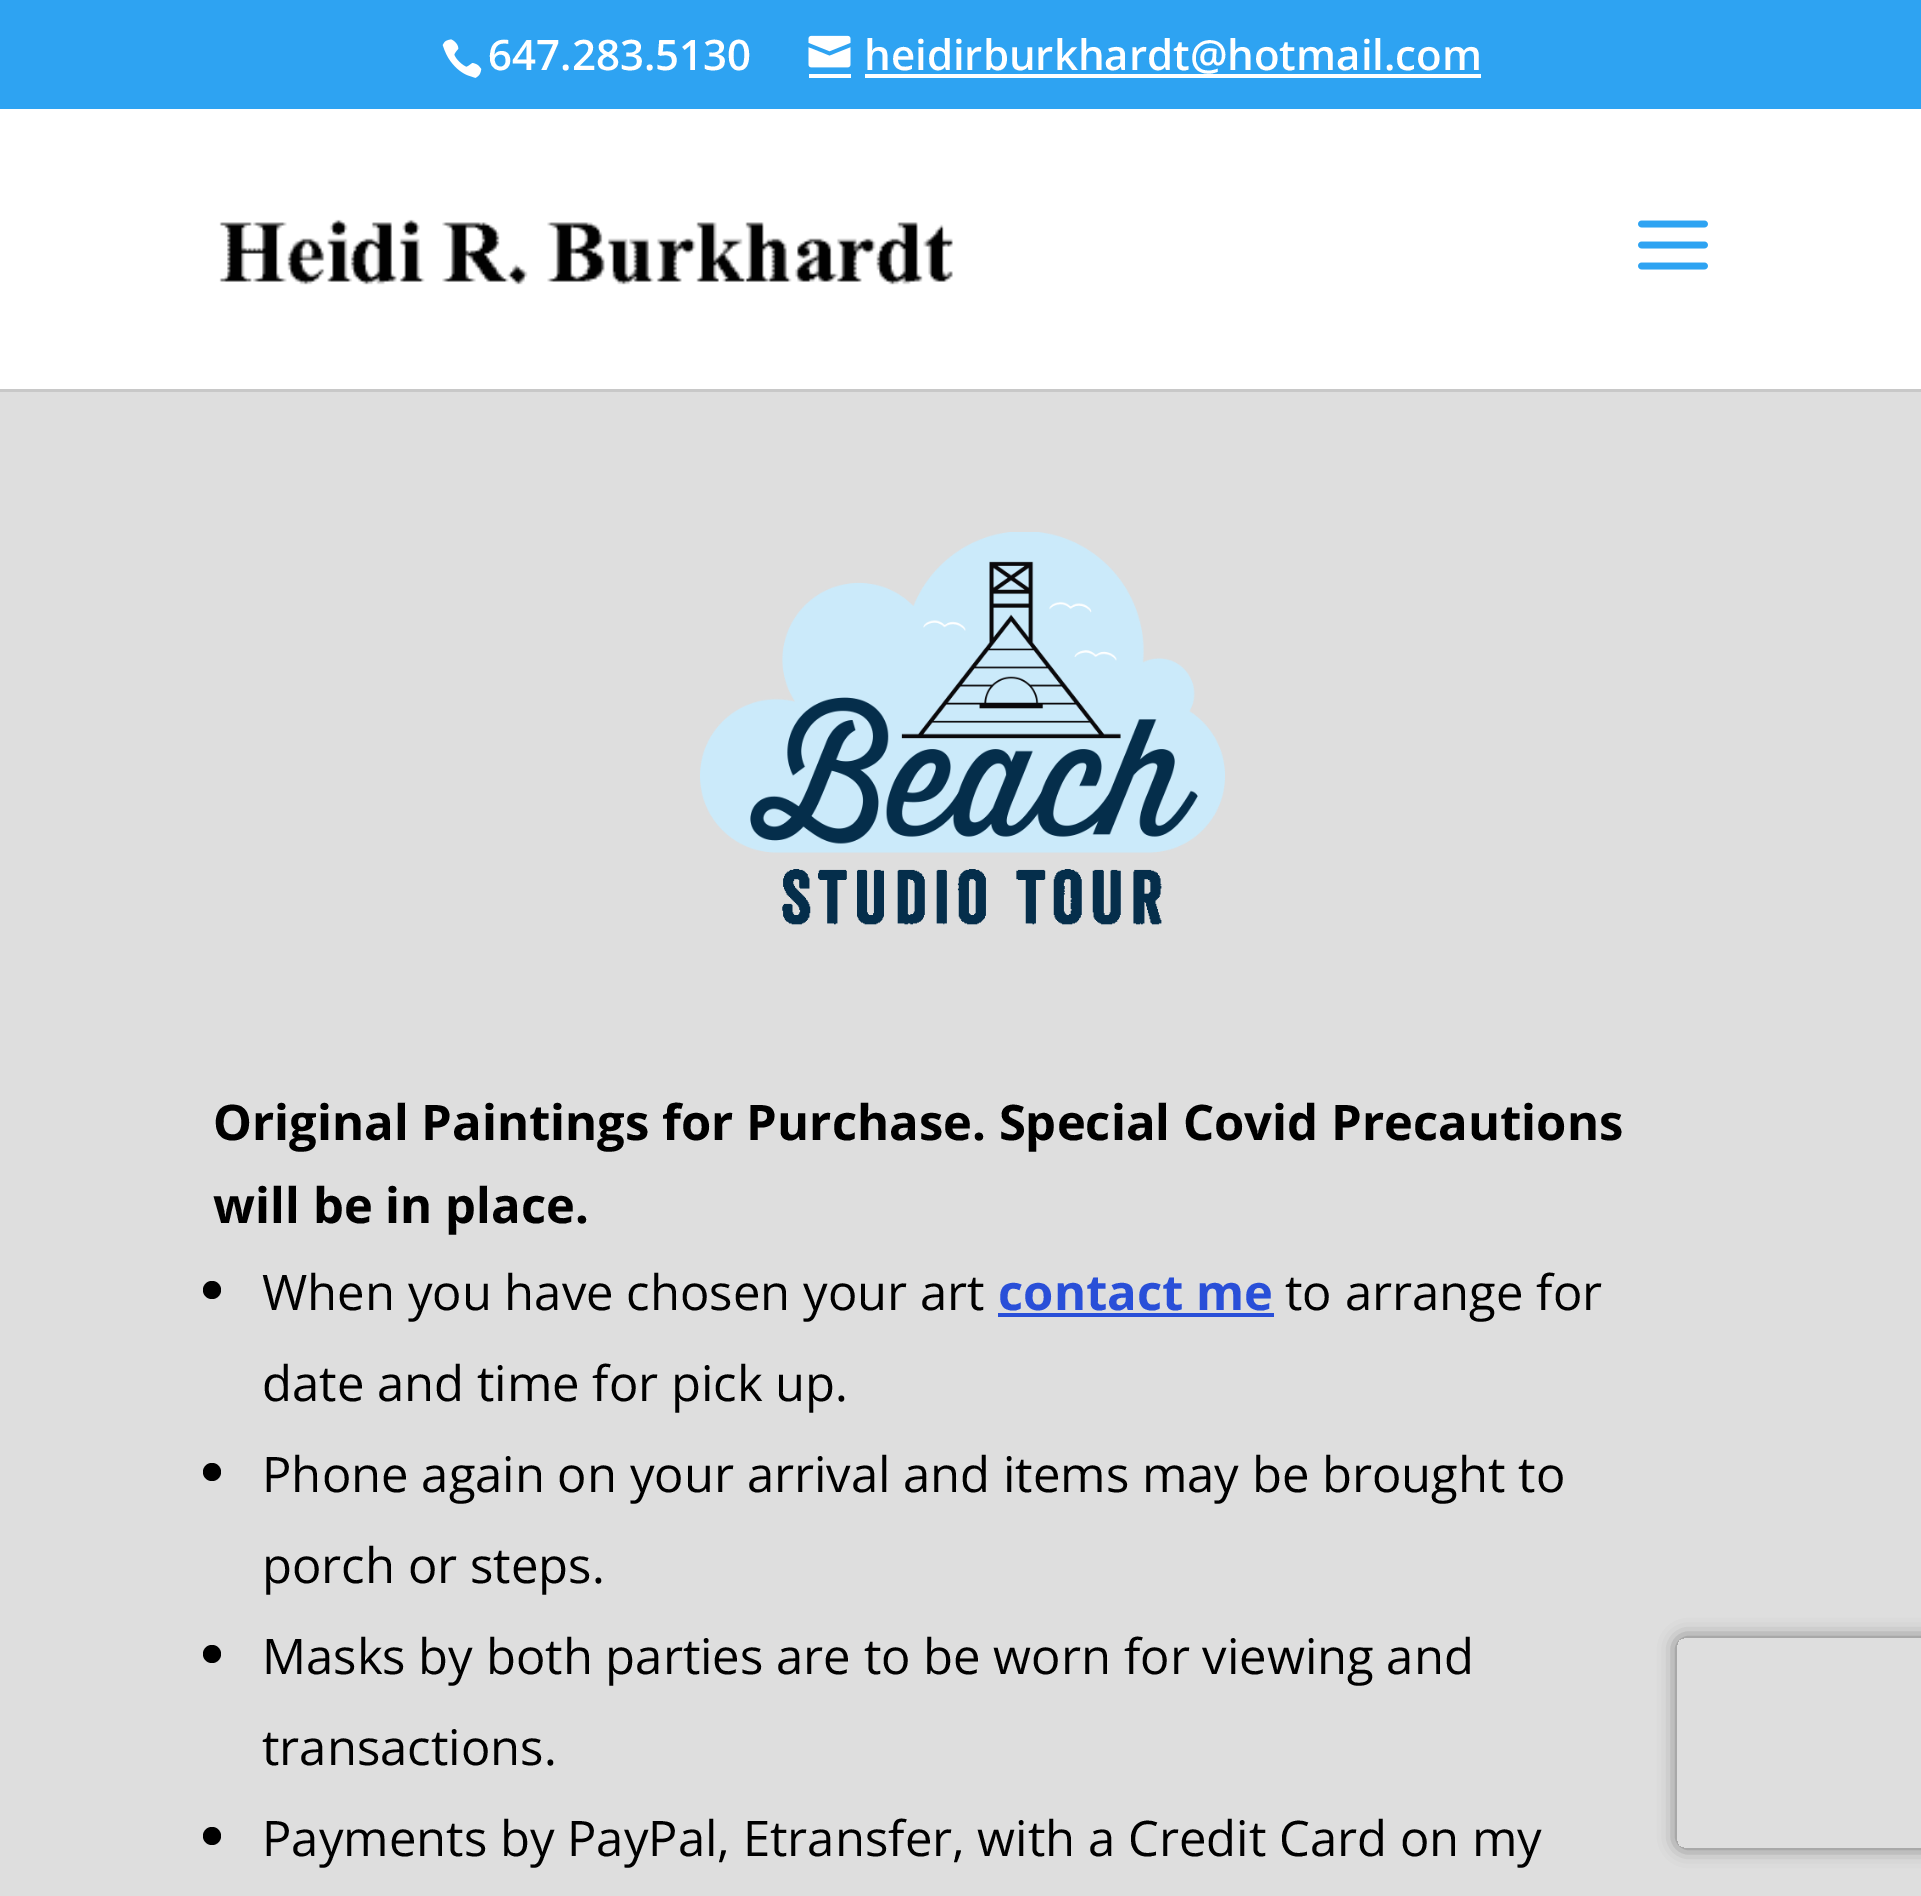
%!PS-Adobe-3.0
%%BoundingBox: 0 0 1921 1896
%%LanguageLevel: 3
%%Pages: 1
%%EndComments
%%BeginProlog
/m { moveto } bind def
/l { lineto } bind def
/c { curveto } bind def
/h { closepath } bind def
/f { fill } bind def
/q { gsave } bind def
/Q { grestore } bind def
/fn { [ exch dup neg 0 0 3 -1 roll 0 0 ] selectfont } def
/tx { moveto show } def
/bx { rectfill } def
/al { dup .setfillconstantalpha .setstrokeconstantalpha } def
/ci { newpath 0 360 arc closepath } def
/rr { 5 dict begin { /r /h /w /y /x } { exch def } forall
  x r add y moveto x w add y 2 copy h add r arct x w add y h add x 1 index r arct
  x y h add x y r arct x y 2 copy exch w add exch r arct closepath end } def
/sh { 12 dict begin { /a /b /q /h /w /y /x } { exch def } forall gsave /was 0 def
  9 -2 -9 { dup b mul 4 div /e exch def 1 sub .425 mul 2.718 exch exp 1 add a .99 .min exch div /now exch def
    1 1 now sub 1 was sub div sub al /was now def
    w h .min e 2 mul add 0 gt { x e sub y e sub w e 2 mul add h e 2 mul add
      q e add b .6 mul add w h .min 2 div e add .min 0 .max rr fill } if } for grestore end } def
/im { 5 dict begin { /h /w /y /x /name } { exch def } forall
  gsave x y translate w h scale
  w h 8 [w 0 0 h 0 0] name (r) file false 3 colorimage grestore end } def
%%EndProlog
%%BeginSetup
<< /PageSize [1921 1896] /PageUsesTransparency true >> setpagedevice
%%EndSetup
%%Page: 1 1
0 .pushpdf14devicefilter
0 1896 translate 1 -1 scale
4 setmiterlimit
0.871 setgray
0 0 1921 1896 bx
0.18 0.639 0.949 setrgbcolor
0 0 1921 109 bx
(image0.raw) 442 39 40 39 im
/OpenSans-SemiBold 42 fn
1 setgray
(647.283.5130) 488 70 tx
(image1.raw) 808 35 43 33 im
(heidirburkhardt@hotmail.com) 864 70 tx
809 74 42 4 bx
865 74 616 4 bx
0.784 setgray
0 388 m 0 392 l 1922 392 l 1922 112 l 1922 388 l h f
1 setgray
0 109 1921 280 bx
(image2.raw) 219 219 734 66 im
(image3.raw) 1638 220 70 50 im
(image4.raw) 700 532 525 393 im
/OpenSans-Bold 49 fn
0 setgray
(Original Paintings for Purchase. Special Covid Precautions) 213 1140 tx
(will be in place.) 213 1223 tx
212 1290 9 ci f
/OpenSans-Regular 49 fn
(When you have chosen your art) 262 1310 tx
/OpenSans-Bold 49 fn
0.161 0.31 0.847 setrgbcolor
(contact me) 998 1310 tx
998 1313 276 4 bx
/OpenSans-Regular 49 fn
0 setgray
(to arrange for) 1285 1310 tx
(date and time for pick up.) 262 1401 tx
212 1472 9 ci f
(Phone again on your arrival and items may be brought to) 262 1492 tx
(porch or steps.) 262 1583 tx
212 1654 9 ci f
(Masks by both parties are to be worn for viewing and) 262 1674 tx
(transactions.) 262 1765 tx
212 1836 9 ci f
(Payments by PayPal, Etransfer, with a Credit Card on my) 262 1856 tx
q
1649 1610 m 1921 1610 l 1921 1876 l 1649 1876 l h 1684 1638 m 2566 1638 l 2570 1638 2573 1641 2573 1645 c 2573 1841 l 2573 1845 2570 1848 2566 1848 c 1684 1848 l 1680 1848 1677 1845 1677 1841 c 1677 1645 l 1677 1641 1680 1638 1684 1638 c h eoclip newpath
0.435 setgray
1677 1638 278 210 7 9 1 sh
Q
.poppdf14devicefilter showpage
%%EOF
